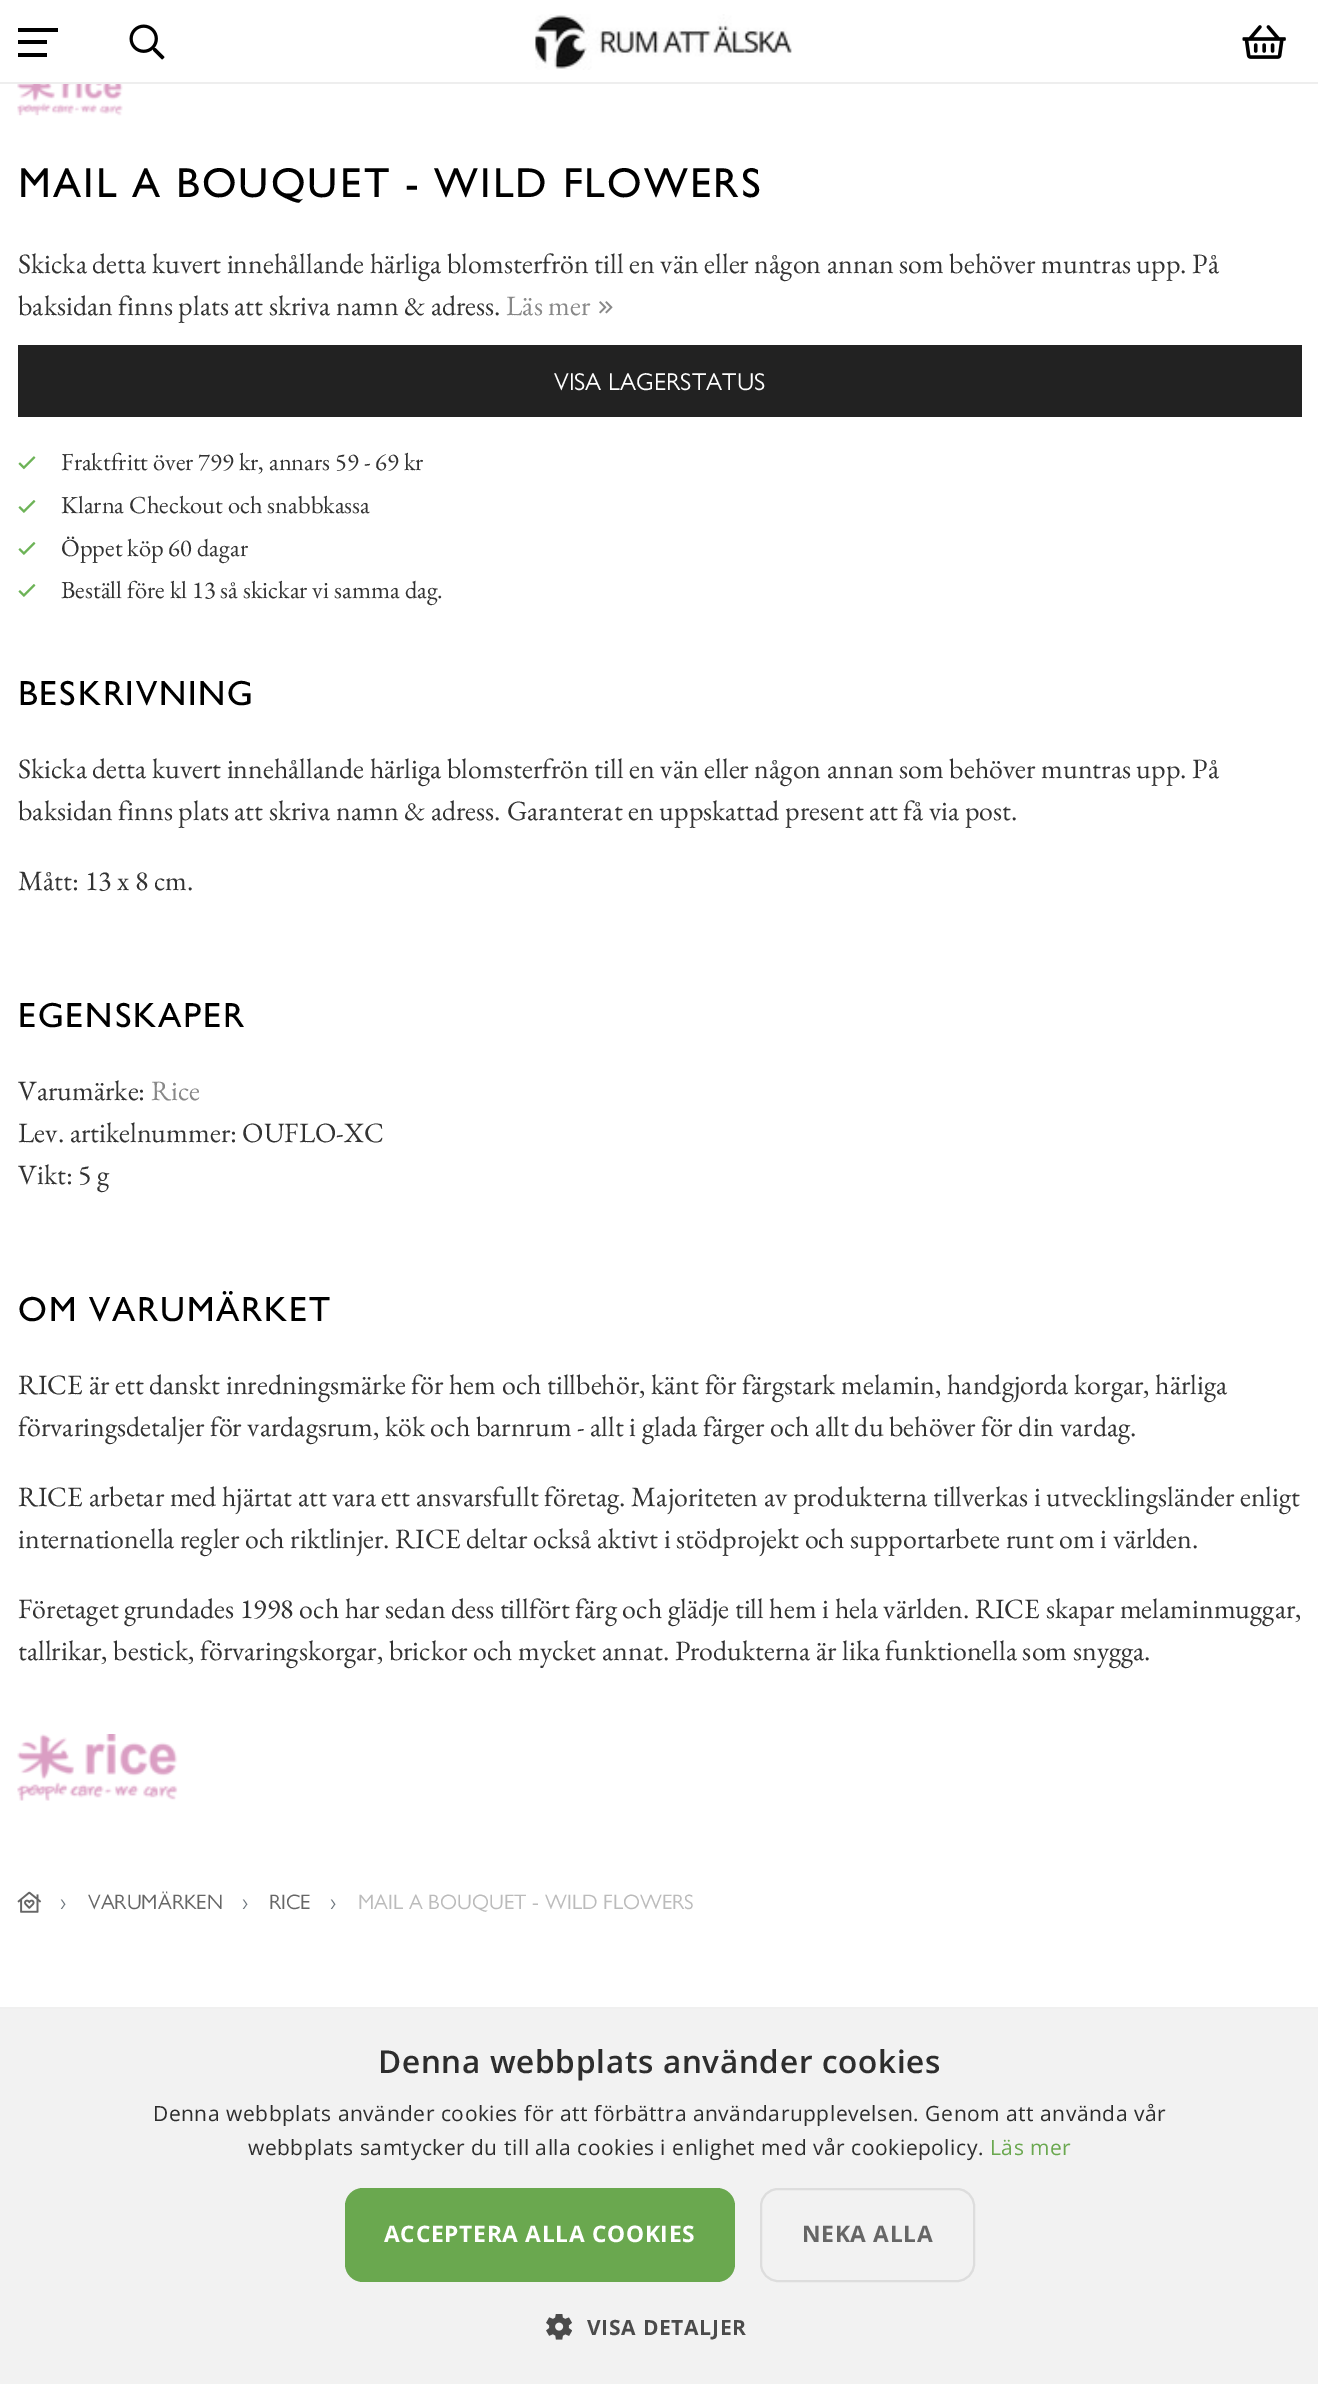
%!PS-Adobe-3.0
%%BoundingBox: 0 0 1318 2384
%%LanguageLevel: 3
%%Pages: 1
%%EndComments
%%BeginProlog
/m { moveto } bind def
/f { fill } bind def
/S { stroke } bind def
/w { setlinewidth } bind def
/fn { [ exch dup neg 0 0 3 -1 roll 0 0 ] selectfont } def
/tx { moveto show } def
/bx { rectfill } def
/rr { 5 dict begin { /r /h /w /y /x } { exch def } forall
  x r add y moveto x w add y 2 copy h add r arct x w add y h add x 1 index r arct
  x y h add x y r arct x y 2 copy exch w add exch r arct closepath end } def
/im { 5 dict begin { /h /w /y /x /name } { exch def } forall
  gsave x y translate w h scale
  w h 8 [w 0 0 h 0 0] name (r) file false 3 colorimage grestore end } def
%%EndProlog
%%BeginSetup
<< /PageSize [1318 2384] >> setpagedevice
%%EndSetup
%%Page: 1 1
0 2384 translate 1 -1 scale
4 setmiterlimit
1 setgray
0 0 1318 2384 bx
0.933 setgray
0 82 1318 2 bx
0 setgray
18 40 29 4 bx
18 28 40 4 bx
18 53 29 4 bx
(image0.raw) 129 24 36 36 im
(image1.raw) 535 14 257 56 im
(image2.raw) 1242 25 44 34 im
(image3.raw) 17 84 106 32 im
/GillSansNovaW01-Medium 42 fn
18 197 m 2.1 0 (MAIL A BOUQUET - WILD FLOWERS) ashow
/EBGaramond-Regular 28 fn
0.2 setgray
(Skicka detta kuvert innehållande härliga blomsterfrön till en vän eller någon annan som behöver muntras upp. På) 18 273 tx
(baksidan finns plats att skriva namn & adress.) 18 315 tx
0.533 setgray
(Läs mer) 506 315 tx
(image4.raw) 599 301 14 13 im
0.133 setgray
18 345 1284 72 bx
/GillSansNovaW01-Regular 24.5 fn
1 setgray
(VISA LAGERSTATUS) 554 390 tx
(image5.raw) 18 456 18 14 im
/EBGaramond-Regular 24.5 fn
0.2 setgray
(Fraktfritt över 799 kr, annars 59 - 69 kr) 61 470 tx
(image6.raw) 18 500 18 13 im
(Klarna Checkout och snabbkassa) 61 513 tx
(image6.raw) 18 542 18 13 im
(Öppet köp 60 dagar) 61 556 tx
(image6.raw) 18 584 18 13 im
(Beställ före kl 13 så skickar vi samma dag.) 61 598 tx
/GillSansNovaW01-Medium 35 fn
0 setgray
18 705 m 1.75 0 (BESKRIVNING) ashow
/EBGaramond-Regular 28 fn
0.2 setgray
(Skicka detta kuvert innehållande härliga blomsterfrön till en vän eller någon annan som behöver muntras upp. På) 18 778 tx
(baksidan finns plats att skriva namn & adress. Garanterat en uppskattad present att få via post.) 18 820 tx
(Mått: 13 x 8 cm.) 18 890 tx
/GillSansNovaW01-Medium 35 fn
0 setgray
18 1027 m 1.75 0 (EGENSKAPER) ashow
/EBGaramond-Regular 28 fn
0.2 setgray
(Varumärke:) 18 1100 tx
0.533 setgray
(Rice) 151 1100 tx
0.2 setgray
(Lev. artikelnummer: OUFLO-XC) 18 1142 tx
(Vikt: 5 g) 18 1184 tx
/GillSansNovaW01-Medium 35 fn
0 setgray
18 1321 m 1.75 0 (OM VARUMÄRKET) ashow
/EBGaramond-Regular 28 fn
0.2 setgray
(RICE är ett danskt inredningsmärke för hem och tillbehör, känt för färgstark melamin, handgjorda korgar, härliga) 18 1394 tx
(förvaringsdetaljer för vardagsrum, kök och barnrum - allt i glada färger och allt du behöver för din vardag.) 18 1436 tx
(RICE arbetar med hjärtat att vara ett ansvarsfullt företag. Majoriteten av produkterna tillverkas i utvecklingsländer enligt) 18 1506 tx
(internationella regler och riktlinjer. RICE deltar också aktivt i stödprojekt och supportarbete runt om i världen.) 18 1548 tx
(Företaget grundades 1998 och har sedan dess tillfört färg och glädje till hem i hela världen. RICE skapar melaminmuggar,) 18 1618 tx
(tallrikar, bestick, förvaringskorgar, brickor och mycket annat. Produkterna är lika funktionella som snygga.) 18 1660 tx
(image7.raw) 17 1734 161 67 im
(image8.raw) 17 1891 25 22 im
/GillSansNovaW01-Regular 21 fn
0.424 0.459 0.49 setrgbcolor
(›) 60 1909 tx
0.4 setgray
(VARUMÄRKEN) 88 1909 tx
0.424 0.459 0.49 setrgbcolor
(›) 242 1909 tx
0.4 setgray
(RICE) 269 1909 tx
0.424 0.459 0.49 setrgbcolor
(›) 330 1909 tx
0.733 setgray
(MAIL A BOUQUET - WILD FLOWERS) 358 1909 tx
0.949 setgray
0 2009 1318 375 bx
0.941 setgray
0 2007 1318 2 bx
/OpenSans-SemiBold 31.5 fn
0.176 setgray
378 2073 m 0.7 0 (Denna webbplats använder cookies) ashow
/OpenSans-Regular 21 fn
153 2121 m 0.53 0 (Denna webbplats använder cookies för att förbättra användarupplevelsen. Genom att använda vår) ashow
248 2155 m 0.53 0 (webbplats samtycker du till alla cookies i enlighet med vår cookiepolicy.) ashow
0.416 0.659 0.31 setrgbcolor
990 2155 m 0.53 0 (Läs mer) ashow
345 2188 390 94 18 rr f
/OpenSans-Bold 22.75 fn
1 setgray
384 2242 m 0.7 0 (ACCEPTERA ALLA COOKIES) ashow
0.867 setgray
2 w
761 2189 213 92 17 rr S
0.4 setgray
802 2242 m 0.7 0 (NEKA ALLA) ashow
(image9.raw) 546 2314 26 26 im
/OpenSans-Bold 21 fn
0.294 setgray
587 2335 m 0.7 0 (VISA DETALJER) ashow
showpage
%%EOF
